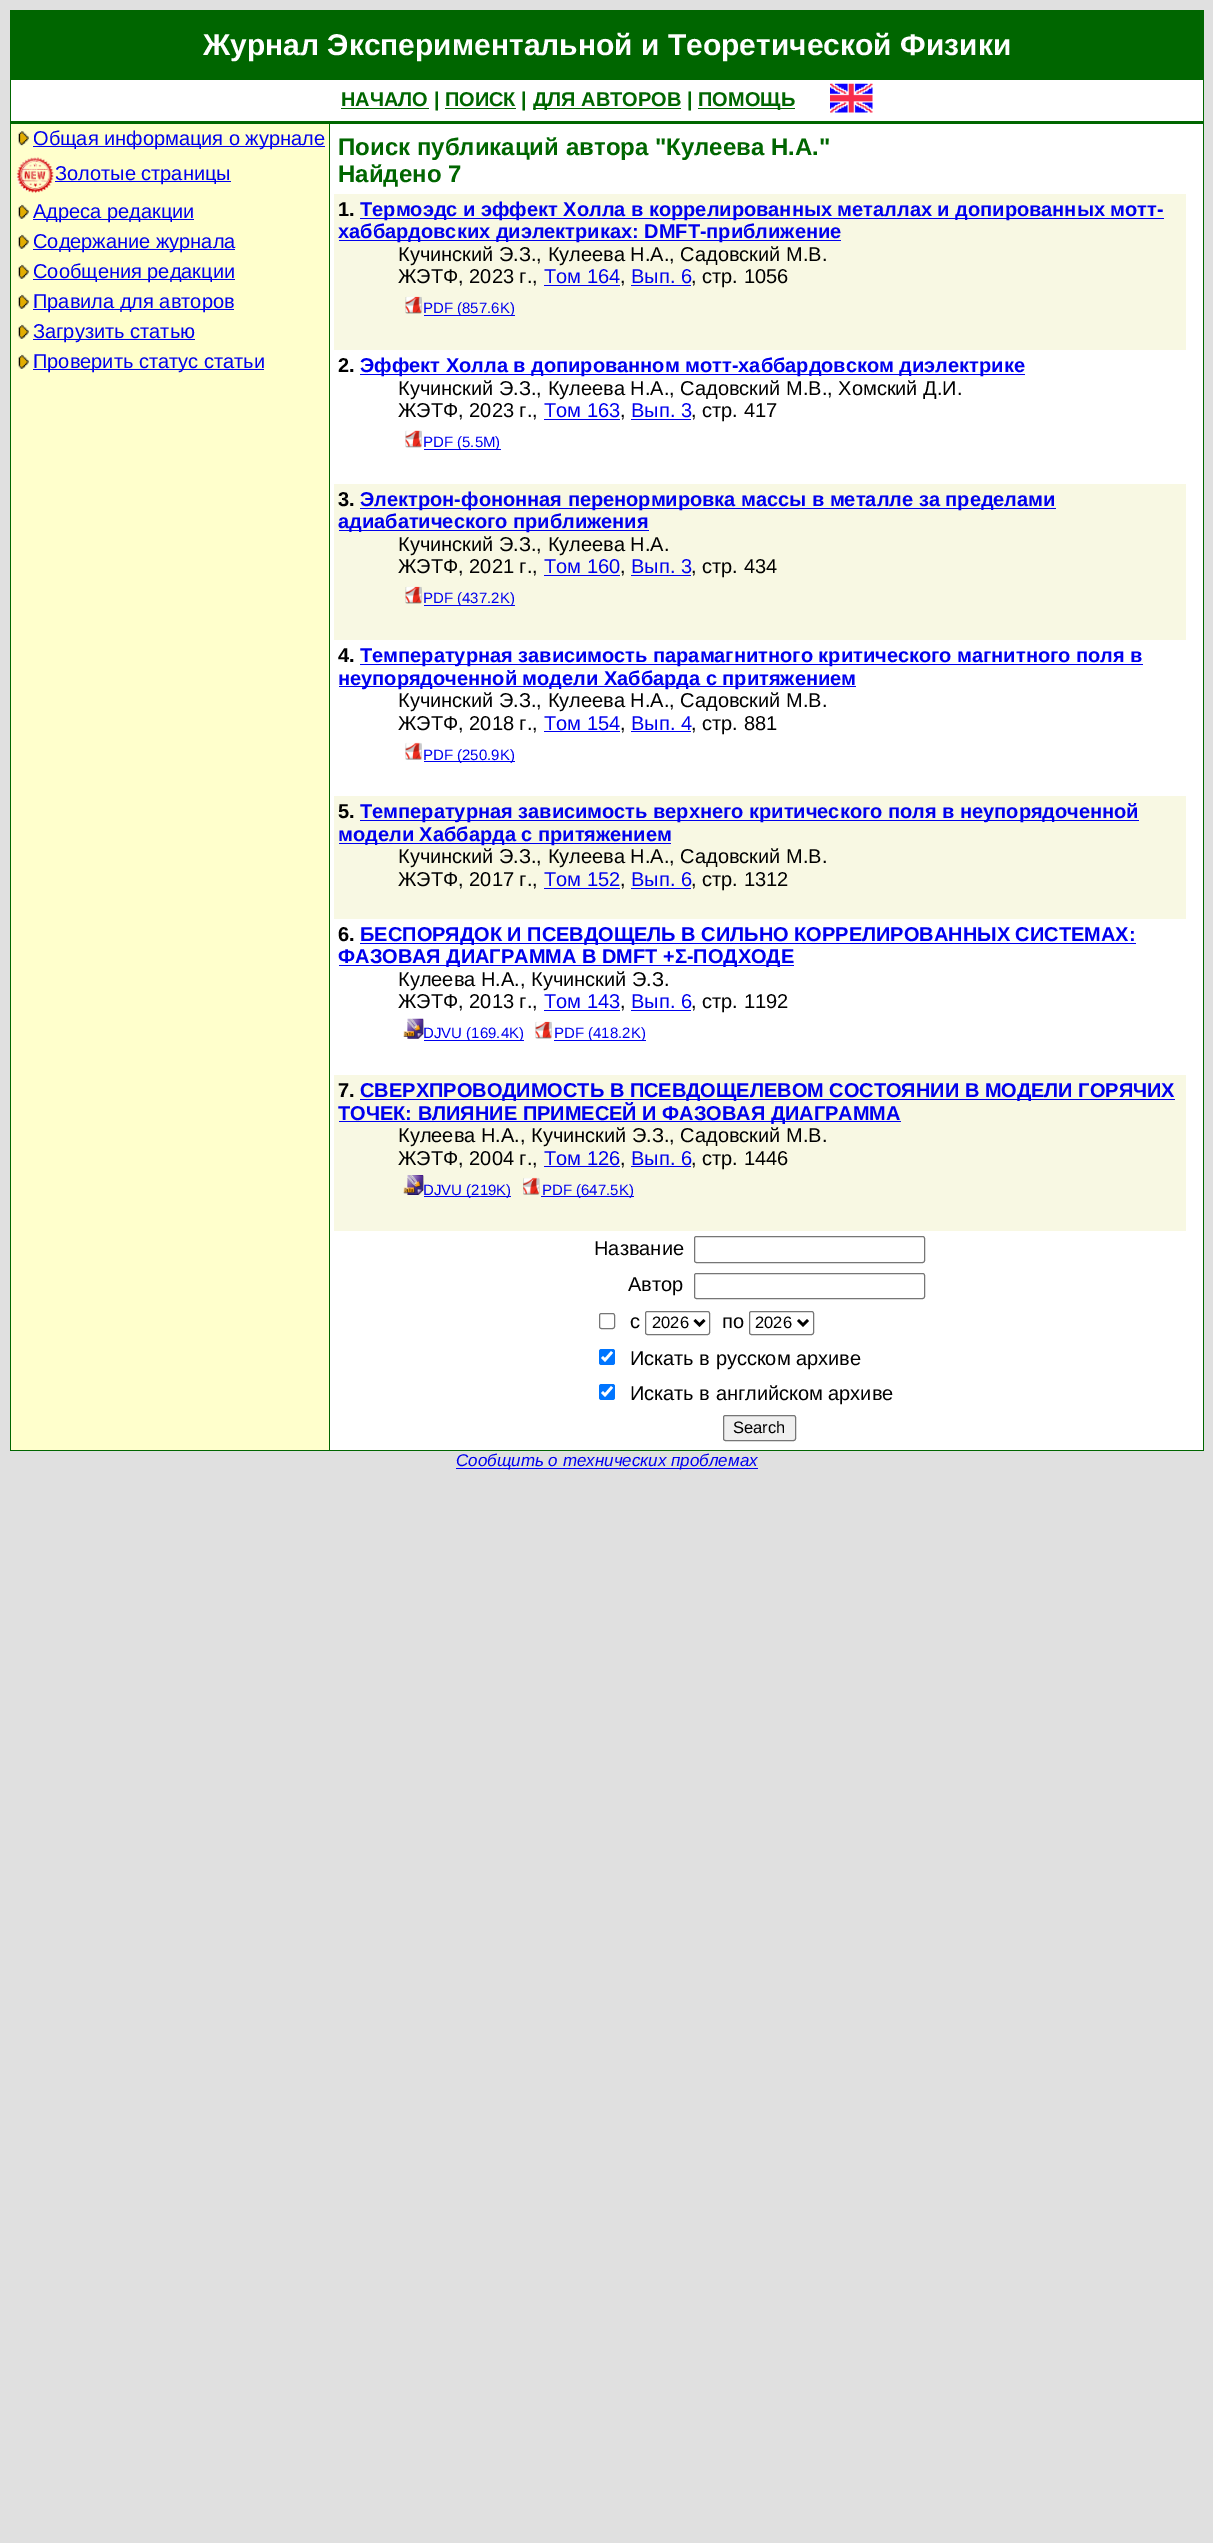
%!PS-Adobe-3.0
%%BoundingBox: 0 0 1213 2543
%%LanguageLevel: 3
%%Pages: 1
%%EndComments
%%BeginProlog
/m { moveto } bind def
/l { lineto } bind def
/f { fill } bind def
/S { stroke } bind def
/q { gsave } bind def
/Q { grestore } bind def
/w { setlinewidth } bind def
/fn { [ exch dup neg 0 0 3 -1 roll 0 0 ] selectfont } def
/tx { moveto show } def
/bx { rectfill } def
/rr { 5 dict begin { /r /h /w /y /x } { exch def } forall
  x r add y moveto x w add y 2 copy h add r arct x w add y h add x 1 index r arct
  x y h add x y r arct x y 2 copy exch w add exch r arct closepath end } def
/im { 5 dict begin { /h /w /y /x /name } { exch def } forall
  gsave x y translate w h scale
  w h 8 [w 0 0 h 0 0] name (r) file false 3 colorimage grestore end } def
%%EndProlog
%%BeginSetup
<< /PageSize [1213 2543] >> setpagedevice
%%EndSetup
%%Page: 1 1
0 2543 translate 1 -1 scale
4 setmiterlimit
0.878 setgray
0 0 1213 2543 bx
0 0.4 0 setrgbcolor
10 10 1194 1441 bx
1 setgray
11 80 1192 1370 bx
/LiberationSans-Bold 30 fn
(Журнал Экспериментальной и Теоретической Физики) 203 55 tx
0 0.4 0 setrgbcolor
341 108 88 1 bx
/LiberationSans-Bold 20 fn
(НАЧАЛО | ПОИСК |) 341 106 tx
533 108 148 1 bx
(ДЛЯ АВТОРОВ |) 533 106 tx
698 108 97 1 bx
(ПОМОЩЬ) 698 106 tx
445 108 71 1 bx
(image0.raw) 830 83 43 30 im
11 121 1192 3 bx
1 1 0.8 setrgbcolor
11 124 318 1326 bx
(image1.raw) 17 131 12 15 im
0 0 0.933 setrgbcolor
33 146 292 1 bx
/LiberationSans-Regular 20 fn
(Общая информация о журнале) 33 145 tx
(image2.raw) 16 157 38 36 im
55 181 176 1 bx
(Золотые страницы) 55 180 tx
(image3.raw) 17 204 12 15 im
33 219 161 1 bx
(Адреса редакции) 33 218 tx
(image3.raw) 17 234 12 15 im
33 249 202 1 bx
(Содержание журнала) 33 248 tx
(image3.raw) 17 264 12 15 im
33 279 202 1 bx
(Сообщения редакции) 33 278 tx
(image4.raw) 17 294 12 15 im
33 309 201 1 bx
(Правила для авторов) 33 308 tx
(image3.raw) 17 324 12 15 im
33 339 162 1 bx
(Загрузить статью) 33 338 tx
(image3.raw) 17 354 12 15 im
33 369 231 1 bx
(Проверить статус статьи) 33 368 tx
0 0.4 0 setrgbcolor
329 124 1 1326 bx
/LiberationSans-Bold 24 fn
(Поиск публикаций автора "Кулеева Н.А.") 338 155 tx
(Найдено 7) 338 182 tx
0.973 0.973 0.89 setrgbcolor
334 194 852 156 bx
/LiberationSans-Bold 20 fn
0 setgray
(1.) 338 216 tx
0 0 0.933 setrgbcolor
360 218 804 1 bx
(Термоэдс и эффект Холла в коррелированных металлах и допированных мотт-) 360 216 tx
339 240 502 1 bx
(хаббардовских диэлектриках: DMFT-приближение) 338 238 tx
/LiberationSans-Regular 20 fn
0 setgray
(Кучинский Э.З., Кулеева Н.А., Садовский М.В.) 398 261 tx
(ЖЭТФ, 2023 г.,) 398 283 tx
0 0 0.933 setrgbcolor
(Том 164) 544 283 tx
544 285 76 1 bx
0 setgray
(,) 620 283 tx
0 0 0.933 setrgbcolor
(Вып. 6) 631 283 tx
631 285 60 1 bx
0 setgray
(, стр. 1056) 691 283 tx
(image5.raw) 405 296 17 18 im
0 0 0.933 setrgbcolor
424 315 91 1 bx
/LiberationSans-Regular 15 fn
(PDF \(857.6K\)) 423 313 tx
/LiberationSans-Bold 20 fn
0 setgray
(2.) 338 372 tx
0 0 0.933 setrgbcolor
360 374 665 1 bx
(Эффект Холла в допированном мотт-хаббардовском диэлектрике) 360 372 tx
/LiberationSans-Regular 20 fn
0 setgray
(Кучинский Э.З., Кулеева Н.А., Садовский М.В., Хомский Д.И.) 398 395 tx
(ЖЭТФ, 2023 г.,) 398 417 tx
0 0 0.933 setrgbcolor
(Том 163) 544 417 tx
544 419 76 1 bx
0 setgray
(,) 620 417 tx
0 0 0.933 setrgbcolor
(Вып. 3) 631 417 tx
631 419 60 1 bx
0 setgray
(, стр. 417) 691 417 tx
(image6.raw) 405 430 17 18 im
0 0 0.933 setrgbcolor
424 449 77 1 bx
/LiberationSans-Regular 15 fn
(PDF \(5.5M\)) 423 447 tx
0.973 0.973 0.89 setrgbcolor
334 484 852 156 bx
/LiberationSans-Bold 20 fn
0 setgray
(3.) 338 506 tx
0 0 0.933 setrgbcolor
360 508 696 1 bx
(Электрон-фононная перенормировка массы в металле за пределами) 360 506 tx
339 530 310 1 bx
(адиабатического приближения) 338 528 tx
/LiberationSans-Regular 20 fn
0 setgray
(Кучинский Э.З., Кулеева Н.А.) 398 551 tx
(ЖЭТФ, 2021 г.,) 398 573 tx
0 0 0.933 setrgbcolor
(Том 160) 544 573 tx
544 575 76 1 bx
0 setgray
(,) 620 573 tx
0 0 0.933 setrgbcolor
(Вып. 3) 631 573 tx
631 575 60 1 bx
0 setgray
(, стр. 434) 691 573 tx
(image5.raw) 405 586 17 18 im
0 0 0.933 setrgbcolor
424 605 91 1 bx
/LiberationSans-Regular 15 fn
(PDF \(437.2K\)) 423 603 tx
/LiberationSans-Bold 20 fn
0 setgray
(4.) 338 662 tx
0 0 0.933 setrgbcolor
360 664 783 1 bx
(Температурная зависимость парамагнитного критического магнитного поля в) 360 662 tx
339 686 517 1 bx
(неупорядоченной модели Хаббарда с притяжением) 338 685 tx
/LiberationSans-Regular 20 fn
0 setgray
(Кучинский Э.З., Кулеева Н.А., Садовский М.В.) 398 707 tx
(ЖЭТФ, 2018 г.,) 398 730 tx
0 0 0.933 setrgbcolor
(Том 154) 544 730 tx
544 731 76 1 bx
0 setgray
(,) 620 730 tx
0 0 0.933 setrgbcolor
(Вып. 4) 631 730 tx
631 731 60 1 bx
0 setgray
(, стр. 881) 691 730 tx
(image7.raw) 405 742 17 18 im
0 0 0.933 setrgbcolor
424 761 91 1 bx
/LiberationSans-Regular 15 fn
(PDF \(250.9K\)) 423 760 tx
0.973 0.973 0.89 setrgbcolor
334 796 852 123 bx
/LiberationSans-Bold 20 fn
0 setgray
(5.) 338 818 tx
0 0 0.933 setrgbcolor
360 820 779 1 bx
(Температурная зависимость верхнего критического поля в неупорядоченной) 360 818 tx
339 843 332 1 bx
(модели Хаббарда с притяжением) 338 841 tx
/LiberationSans-Regular 20 fn
0 setgray
(Кучинский Э.З., Кулеева Н.А., Садовский М.В.) 398 863 tx
(ЖЭТФ, 2017 г.,) 398 886 tx
0 0 0.933 setrgbcolor
(Том 152) 544 886 tx
544 888 76 1 bx
0 setgray
(,) 620 886 tx
0 0 0.933 setrgbcolor
(Вып. 6) 631 886 tx
631 888 60 1 bx
0 setgray
(, стр. 1312) 691 886 tx
/LiberationSans-Bold 20 fn
(6.) 338 941 tx
0 0 0.933 setrgbcolor
360 943 776 1 bx
(БЕСПОРЯДОК И ПСЕВДОЩЕЛЬ В СИЛЬНО КОРРЕЛИРОВАННЫХ СИСТЕМАХ:) 360 941 tx
339 965 455 1 bx
(ФАЗОВАЯ ДИАГРАММА В DMFT +Σ-ПОДХОДЕ) 338 963 tx
/LiberationSans-Regular 20 fn
0 setgray
(Кулеева Н.А., Кучинский Э.З.) 398 986 tx
(ЖЭТФ, 2013 г.,) 398 1008 tx
0 0 0.933 setrgbcolor
(Том 143) 544 1008 tx
544 1010 76 1 bx
0 setgray
(,) 620 1008 tx
0 0 0.933 setrgbcolor
(Вып. 6) 631 1008 tx
631 1010 60 1 bx
0 setgray
(, стр. 1192) 691 1008 tx
(image8.raw) 403 1018 21 21 im
0 0 0.933 setrgbcolor
424 1040 100 1 bx
/LiberationSans-Regular 15 fn
(DJVU \(169.4K\)) 423 1038 tx
(image9.raw) 535 1021 17 18 im
554 1040 92 1 bx
(PDF \(418.2K\)) 554 1038 tx
0.973 0.973 0.89 setrgbcolor
334 1075 852 156 bx
/LiberationSans-Bold 20 fn
0 setgray
(7.) 338 1097 tx
0 0 0.933 setrgbcolor
360 1099 815 1 bx
(СВЕРХПРОВОДИМОСТЬ В ПСЕВДОЩЕЛЕВОМ СОСТОЯНИИ В МОДЕЛИ ГОРЯЧИХ) 360 1097 tx
339 1121 562 1 bx
(ТОЧЕК: ВЛИЯНИЕ ПРИМЕСЕЙ И ФАЗОВАЯ ДИАГРАММА) 338 1120 tx
/LiberationSans-Regular 20 fn
0 setgray
(Кулеева Н.А., Кучинский Э.З., Садовский М.В.) 398 1142 tx
(ЖЭТФ, 2004 г.,) 398 1165 tx
0 0 0.933 setrgbcolor
(Том 126) 544 1165 tx
544 1166 76 1 bx
0 setgray
(,) 620 1165 tx
0 0 0.933 setrgbcolor
(Вып. 6) 631 1165 tx
631 1166 60 1 bx
0 setgray
(, стр. 1446) 691 1165 tx
(image10.raw) 403 1175 21 20 im
0 0 0.933 setrgbcolor
424 1196 87 1 bx
/LiberationSans-Regular 15 fn
(DJVU \(219K\)) 423 1195 tx
(image11.raw) 523 1177 17 18 im
541 1196 93 1 bx
(PDF \(647.5K\)) 542 1195 tx
/LiberationSans-Regular 20 fn
0 setgray
(Название) 594 1255 tx
0.463 setgray
694.5 1236.5 230 26 2 rr S
0 setgray
(Автор) 628 1291 tx
0.463 setgray
694.5 1273.5 230 25 2 rr S
599.5 1313.5 15 15 2 rr S
0 setgray
(с) 630 1328 tx
0.463 setgray
645.5 1311.5 64 23 2 rr S
0 setgray
2.5 w
694.5 1320 m 699.5 1325 l 704.5 1320 l S
/LiberationSans-Regular 16.5 fn
(2026) 652 1328 tx
/LiberationSans-Regular 20 fn
(по) 722 1328 tx
0.463 setgray
1 w
749.5 1311.5 64 23 2 rr S
0 setgray
2.5 w
798 1320 m 803 1325 l 808 1320 l S
/LiberationSans-Regular 16.5 fn
(2026) 755 1328 tx
0 0.459 1 setrgbcolor
599 1349 16 16 2.5 rr f
1 setgray
2.6 w
602 1357 m 605 1360 l 612 1352 l S
/LiberationSans-Regular 20 fn
0 setgray
(Искать в русском архиве) 630 1365 tx
0 0.459 1 setrgbcolor
599 1384 16 16 2.5 rr f
1 setgray
602 1392 m 605 1395 l 612 1387 l S
0 setgray
(Искать в английском архиве) 630 1400 tx
0.937 setgray
723.5 1415.5 72 25 2 rr q f Q
0.463 setgray
1 w
S
/LiberationSans-Regular 16.5 fn
0 setgray
(Search) 733 1433 tx
0 0 0.933 setrgbcolor
456 1468 302 1 bx
/LiberationSans-Italic 17 fn
(Сообщить о технических проблемах) 456 1466 tx
showpage
%%EOF
